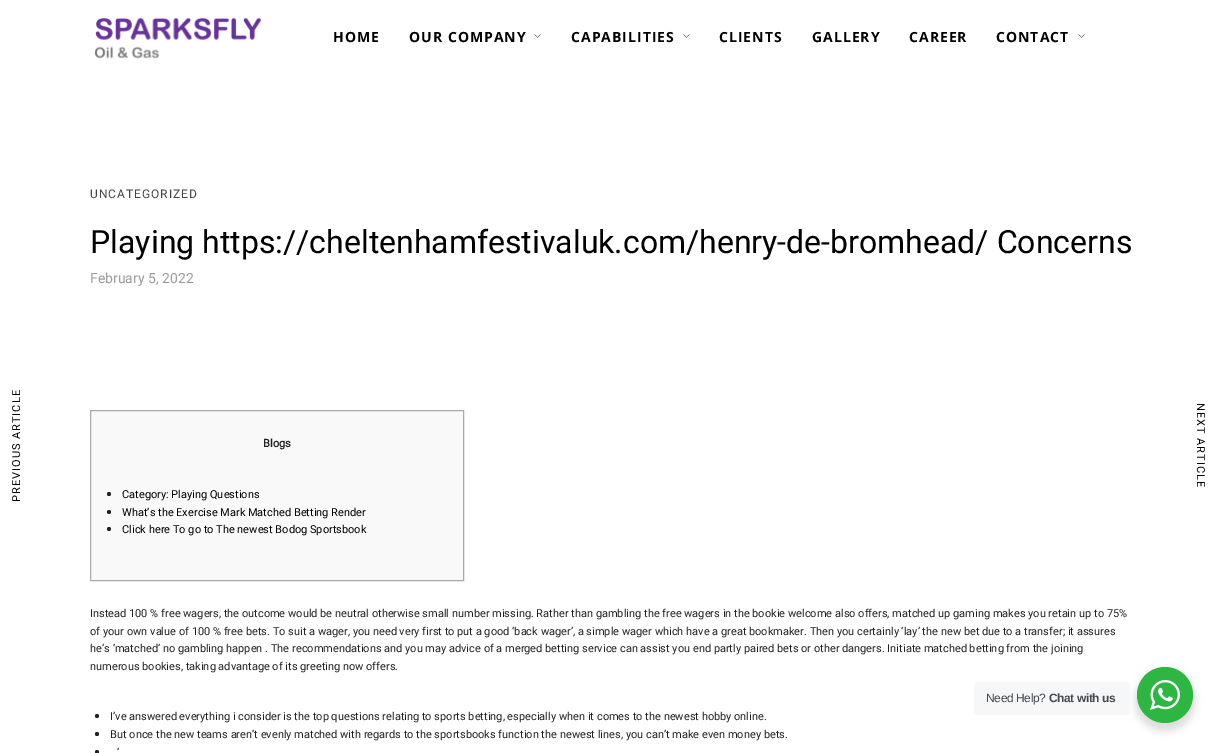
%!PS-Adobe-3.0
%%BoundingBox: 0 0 1223 753
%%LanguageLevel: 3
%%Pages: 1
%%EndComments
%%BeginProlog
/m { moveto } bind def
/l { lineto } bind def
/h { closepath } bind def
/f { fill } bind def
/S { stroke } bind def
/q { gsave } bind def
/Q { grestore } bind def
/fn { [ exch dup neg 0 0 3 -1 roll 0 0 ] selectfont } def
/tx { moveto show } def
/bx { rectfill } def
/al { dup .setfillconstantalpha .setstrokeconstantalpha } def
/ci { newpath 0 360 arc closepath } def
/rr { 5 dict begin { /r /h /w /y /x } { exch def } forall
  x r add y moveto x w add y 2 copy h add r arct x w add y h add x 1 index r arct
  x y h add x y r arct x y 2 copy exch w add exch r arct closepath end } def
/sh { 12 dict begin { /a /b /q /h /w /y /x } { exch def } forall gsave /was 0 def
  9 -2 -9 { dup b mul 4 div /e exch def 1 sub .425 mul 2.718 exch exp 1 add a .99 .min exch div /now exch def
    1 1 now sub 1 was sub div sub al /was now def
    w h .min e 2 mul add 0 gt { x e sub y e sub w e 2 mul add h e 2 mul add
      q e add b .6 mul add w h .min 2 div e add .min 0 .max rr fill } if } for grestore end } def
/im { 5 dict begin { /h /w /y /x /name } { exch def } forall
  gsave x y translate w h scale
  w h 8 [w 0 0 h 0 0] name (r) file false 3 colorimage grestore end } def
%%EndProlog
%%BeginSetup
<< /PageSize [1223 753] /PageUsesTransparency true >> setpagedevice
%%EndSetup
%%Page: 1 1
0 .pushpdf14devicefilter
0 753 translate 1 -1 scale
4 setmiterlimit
1 setgray
0 0 1223 753 bx
(image0.raw) 94 17 167 42 im
/OpenSans-Bold 14 fn
0 setgray
333 42 m 1 0 (HOME) ashow
409 42 m 1 0 (OUR COMPANY) ashow
(image1.raw) 534 34 7 4 im
571 42 m 1 0 (CAPABILITIES) ashow
(image1.raw) 683 34 7 4 im
719 42 m 1 0 (CLIENTS) ashow
812 42 m 1 0 (GALLERY) ashow
909 42 m 1 0 (CAREER) ashow
996 42 m 1 0 (CONTACT) ashow
(image1.raw) 1078 34 7 4 im
/Heebo-Regular 12 fn
0.267 setgray
90 198 m 1 0 (UNCATEGORIZED) ashow
/Heebo-Regular 32 fn
0 setgray
(Playing https://cheltenhamfestivaluk.com/henry-de-bromhead/ Concerns) 90 253 tx
/Heebo-Regular 14 fn
0.608 setgray
(February 5, 2022) 90 283 tx
/Heebo-Regular 11 fn
0 setgray
q 20 502 translate -90 rotate 0 0 m 1 0 (PREVIOUS ARTICLE) ashow Q
0.976 setgray
90.5 410.5 m 463.5 410.5 l 463.5 580.5 l 90.5 580.5 l h q f Q
0.667 setgray
S
/Heebo-Bold 11 fn
0.133 setgray
(Blogs) 263 447 tx
109 494 2 ci f
/Heebo-Regular 11 fn
0 setgray
(Category: Playing Questions) 122 498 tx
0.133 setgray
109 512 2 ci f
0 setgray
(What’s the Exercise Mark Matched Betting Render) 122 516 tx
0.133 setgray
109 529 2 ci f
0 setgray
(Click here To go to The newest Bodog Sportsbook) 122 533 tx
0.133 setgray
(Instead 100 % free wagers, the outcome would be neutral otherwise small number missing. Rather than gambling the free wagers in the bookie welcome also offers, matched up gaming makes you retain up to 75%) 90 617 tx
(of your own value of 100 % free bets. To suit a wager, you need very first to put a good ‘back wager’, a simple wager which have a great bookmaker. Then you certainly ‘lay’ the new bet due to a transfer; it assures) 90 635 tx
(he’s ‘matched’ no gambling happen . The recommendations and you may advice of a merged betting service can assist you end partly paired bets or other dangers. Initiate matched betting from the joining) 90 652 tx
(numerous bookies, taking advantage of its greeting now offers.) 90 670 tx
97 716 2 ci f
(I’ve answered everything i consider is the top questions relating to sports betting, especially when it comes to the newest hobby online.) 110 720 tx
97 734 2 ci f
(But once the new teams aren’t evenly matched with regards to the sportsbooks function the newest lines, you can’t make even money bets.) 110 738 tx
(’) 117 756 tx
97 752 2 ci f
0 setgray
q 1197 403 translate 90 rotate 0 0 m 1 0 (NEXT ARTICLE) ashow Q
1135 671 60 60 30 4 0.14 sh
0.961 0.969 0.976 setrgbcolor
974 682 156 33 4 rr f
/LiberationSans-Regular 12 fn
0.263 0.278 0.306 setrgbcolor
986 702 m -0.4 0 (Need Help?) ashow
/LiberationSans-Bold 12 fn
1049 702 m -0.4 0 (Chat with us) ashow
0.176 0.718 0.259 setrgbcolor
1165 695 28 ci f
(image2.raw) 1150 680 30 30 im
.poppdf14devicefilter showpage
%%EOF
